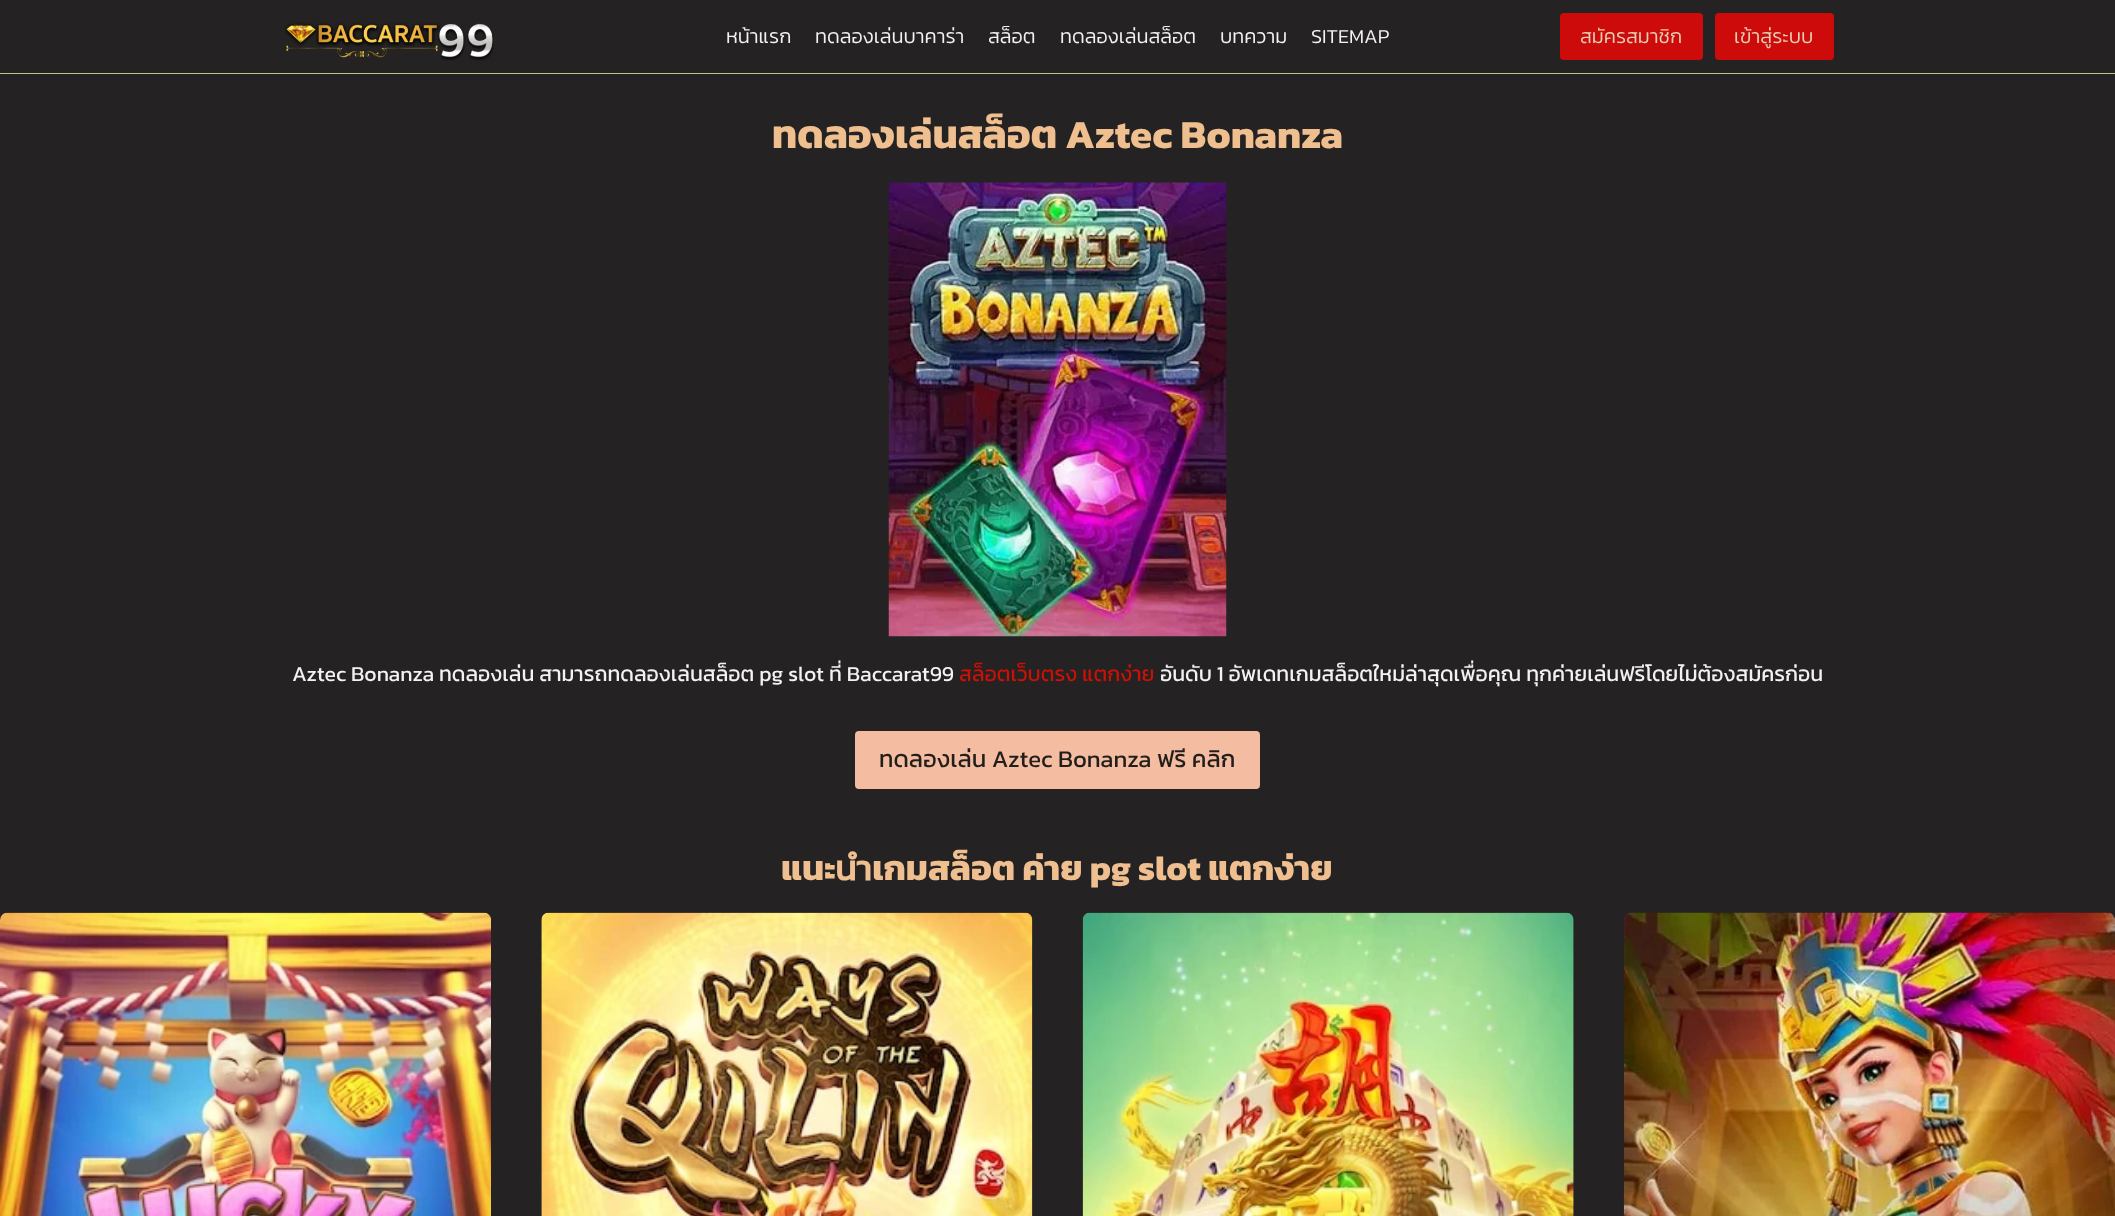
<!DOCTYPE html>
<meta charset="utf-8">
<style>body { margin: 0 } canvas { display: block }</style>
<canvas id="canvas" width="2115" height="1216"></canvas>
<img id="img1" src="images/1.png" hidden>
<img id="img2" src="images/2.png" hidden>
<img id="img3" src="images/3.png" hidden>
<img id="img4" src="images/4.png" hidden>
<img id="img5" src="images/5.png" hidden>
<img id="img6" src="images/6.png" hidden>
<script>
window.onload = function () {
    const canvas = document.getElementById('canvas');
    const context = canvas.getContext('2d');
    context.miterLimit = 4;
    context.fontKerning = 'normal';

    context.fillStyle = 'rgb(36, 34, 34)';
    context.fillRect(0, 0, 2115, 1216);
    context.fillStyle = 'rgb(195, 191, 136)';
    context.fillRect(0, 73, 2115, 1);
    context.drawImage(document.getElementById('img1'), 285, 22, 209, 39);
    context.fillStyle = 'rgb(206, 11, 11)';
    context.beginPath();
    context.roundRect(1560, 13, 143, 47, 4);
    context.fill();
    context.beginPath();
    context.roundRect(1715, 13, 119, 47, 4);
    context.fill();
    context.drawImage(document.getElementById('img2'), 888, 182, 339, 455);
    context.fillStyle = 'rgb(244, 188, 161)';
    context.beginPath();
    context.roundRect(855, 731, 405, 58, 4);
    context.fill();
    context.drawImage(document.getElementById('img3'), 0, 912, 491, 304);
    context.drawImage(document.getElementById('img4'), 541, 912, 492, 304);
    context.drawImage(document.getElementById('img5'), 1082, 912, 492, 304);
    context.drawImage(document.getElementById('img6'), 1623, 912, 492, 304);
    context.font = '300 20px Kanit';
    context.fillStyle = 'rgb(242, 242, 242)';
    context.fillText('หน้าแรก', 726, 43);
    context.fillText('ทดลองเล่นบาคาร่า', 815, 43);
    context.fillText('สล็อต', 988, 43);
    context.fillText('ทดลองเล่นสล็อต', 1060, 43);
    context.fillText('บทความ', 1220, 43);
    context.fillText('SITEMAP', 1311, 43);
    context.fillStyle = 'rgb(230, 207, 180)';
    context.fillText('สมัครสมาชิก', 1580, 43);
    context.fillText('เข้าสู่ระบบ', 1734, 43);
    context.font = 'bold 40px Kanit';
    context.fillStyle = 'rgb(239, 191, 143)';
    context.fillText('ทดลองเล่นสล็อต Aztec Bonanza', 772, 148);
    context.font = '21.25px Kanit';
    context.fillStyle = 'rgb(242, 242, 242)';
    context.fillText('Aztec Bonanza ทดลองเล่น สามารถทดลองเล่นสล็อต pg slot ที่ Baccarat99', 292, 681);
    context.fillStyle = 'rgb(200, 17, 7)';
    context.fillText('สล็อตเว็บตรง แตกง่าย', 959, 681);
    context.fillStyle = 'rgb(242, 242, 242)';
    context.fillText('อันดับ 1 อัพเดทเกมสล็อตใหม่ล่าสุดเพื่อคุณ ทุกค่ายเล่นฟรีโดยไม่ต้องสมัครก่อน', 1160, 681);
    context.font = '23.9px Kanit';
    context.fillStyle = 'rgb(34, 30, 27)';
    context.fillText('ทดลองเล่น Aztec Bonanza ฟรี คลิก', 879, 767);
    context.font = 'bold 35px Kanit';
    context.fillStyle = 'rgb(239, 191, 143)';
    context.fillText('แนะนำเกมสล็อต ค่าย pg slot แตกง่าย', 781, 880);
};
</script>
